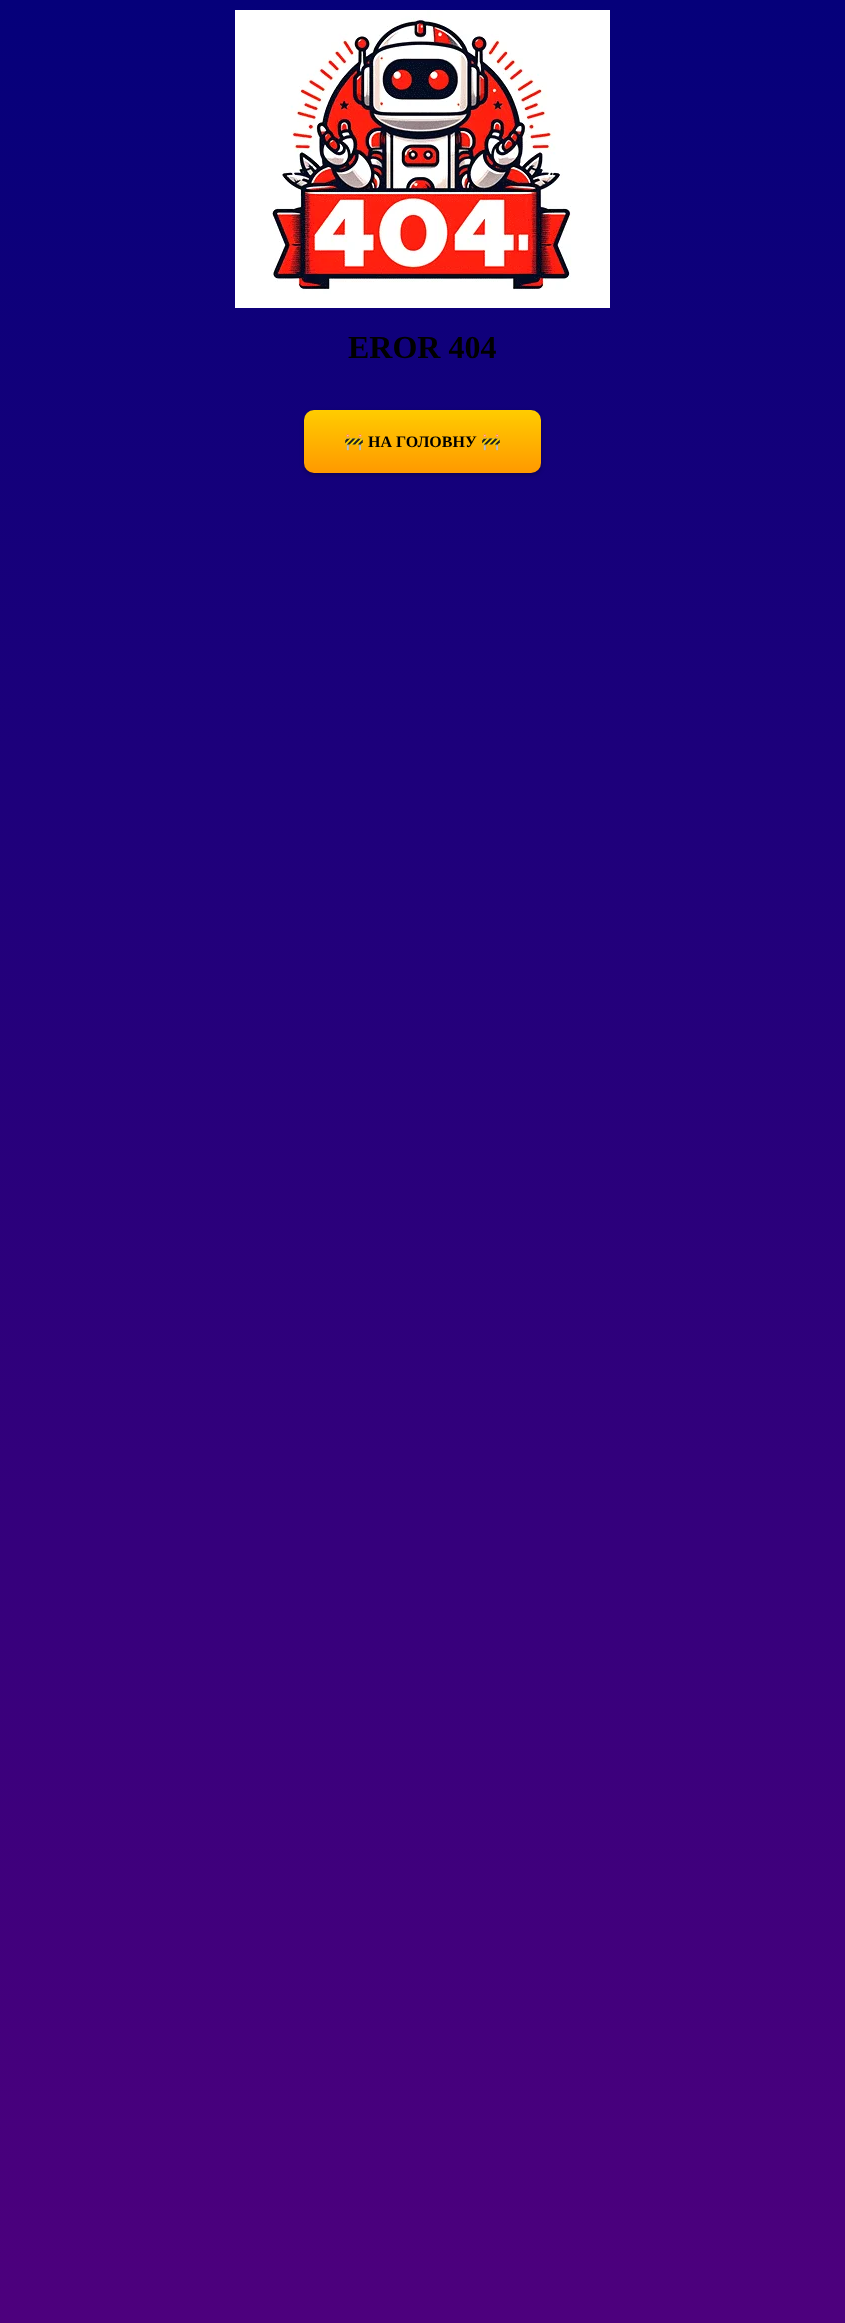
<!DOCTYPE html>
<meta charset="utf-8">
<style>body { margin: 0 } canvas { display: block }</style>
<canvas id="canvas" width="845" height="2323"></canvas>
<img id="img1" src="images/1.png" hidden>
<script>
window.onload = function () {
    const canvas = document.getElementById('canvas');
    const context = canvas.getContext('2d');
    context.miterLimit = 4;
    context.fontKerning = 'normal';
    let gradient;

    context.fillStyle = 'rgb(255, 255, 255)';
    context.fillRect(0, 0, 845, 2323);
    gradient = context.createLinearGradient(422, 0, 423, 2323);
    gradient.addColorStop(0, 'rgb(5, 0, 122)');
    gradient.addColorStop(1, 'rgb(77, 0, 125)');
    context.fillStyle = gradient;
    context.fillRect(0, 0, 845, 2323);
    context.drawImage(document.getElementById('img1'), 235, 10, 375, 298);
    context.fillStyle = 'rgba(0, 0, 0, 0.3)';
    context.filter = 'blur(2px)';
    context.beginPath();
    context.roundRect(304, 412, 237, 63, 10);
    context.fill();
    context.filter = 'none';
    gradient = context.createLinearGradient(423, 410, 423, 473);
    gradient.addColorStop(0, 'rgb(255, 204, 0)');
    gradient.addColorStop(1, 'rgb(255, 153, 0)');
    context.fillStyle = gradient;
    context.beginPath();
    context.roundRect(304, 410, 237, 63, 10);
    context.fill();
    context.font = 'bold 32px Liberation Serif';
    context.fillStyle = 'rgb(0, 0, 0)';
    context.fillText('EROR 404', 348, 358);
    context.font = 'bold 16px Noto Color Emoji';
    context.fillText('🚧', 344, 447);
    context.font = 'bold 16px Liberation Serif';
    context.fillText('НА ГОЛОВНУ', 368, 447);
    context.font = 'bold 16px Noto Color Emoji';
    context.fillText('🚧', 481, 447);
};
</script>
